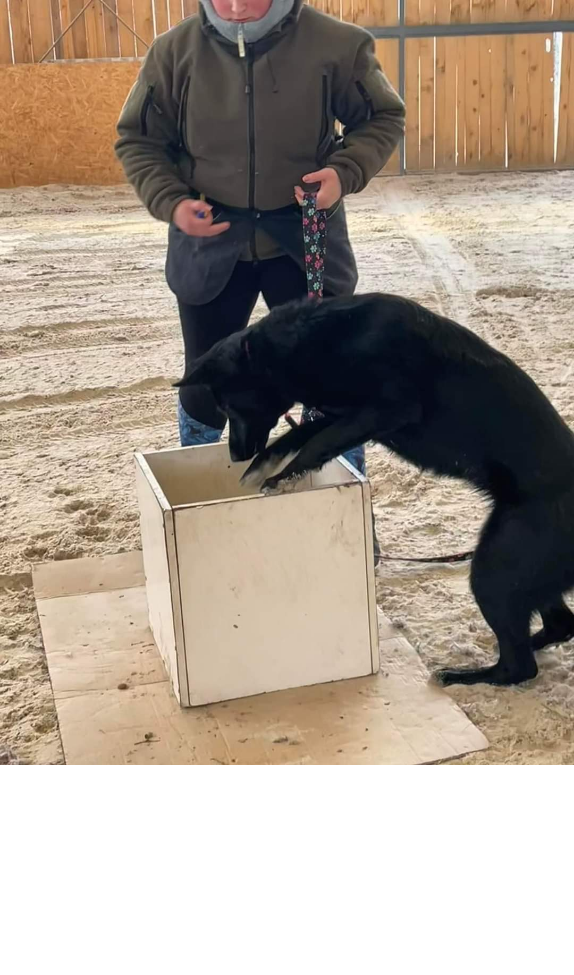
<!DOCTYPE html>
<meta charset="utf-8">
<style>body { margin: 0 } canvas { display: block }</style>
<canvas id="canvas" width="574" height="975"></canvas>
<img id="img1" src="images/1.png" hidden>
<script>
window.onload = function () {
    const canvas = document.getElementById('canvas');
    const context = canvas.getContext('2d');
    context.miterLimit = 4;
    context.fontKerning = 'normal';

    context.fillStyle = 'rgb(255, 255, 255)';
    context.fillRect(0, 0, 574, 975);
    context.drawImage(document.getElementById('img1'), 0, 0, 574, 765);
};
</script>
